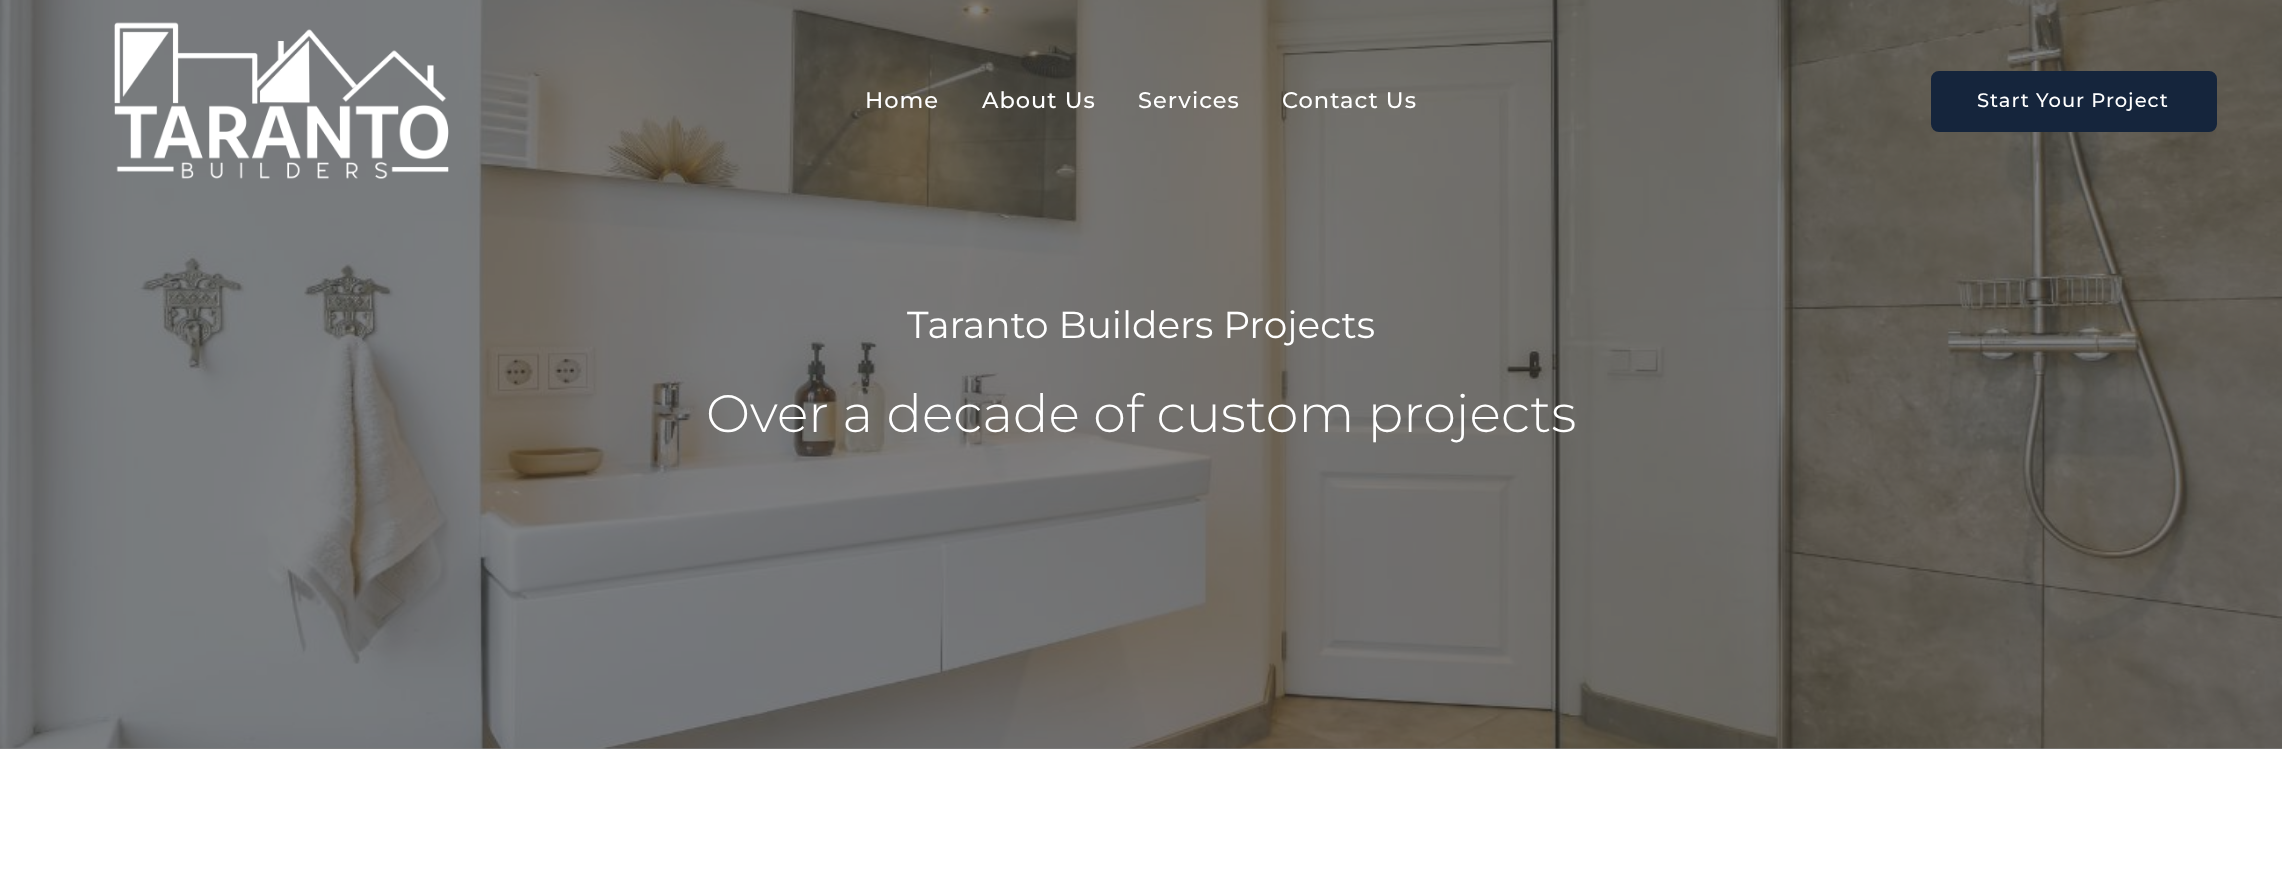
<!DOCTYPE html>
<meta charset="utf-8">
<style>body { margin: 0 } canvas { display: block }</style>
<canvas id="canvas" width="2282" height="880"></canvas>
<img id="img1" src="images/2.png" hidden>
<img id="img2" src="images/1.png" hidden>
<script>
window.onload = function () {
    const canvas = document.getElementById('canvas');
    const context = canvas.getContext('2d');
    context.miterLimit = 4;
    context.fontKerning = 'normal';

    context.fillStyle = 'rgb(255, 255, 255)';
    context.fillRect(0, 0, 2282, 880);
    context.fillStyle = 'rgb(130, 131, 131)';
    context.fillRect(0, 748, 2282, 1);
    context.drawImage(document.getElementById('img1'), 0, 0, 2282, 749);
    context.drawImage(document.getElementById('img2'), 114, 22, 335, 157);
    context.fillStyle = 'rgb(21, 37, 60)';
    context.beginPath();
    context.roundRect(1932, 72, 284, 59, 7);
    context.fill();
    context.strokeStyle = 'rgb(21, 37, 60)';
    context.lineWidth = 2;
    context.stroke();
    context.letterSpacing = '1px';
    context.font = '500 22.5px Montserrat';
    context.fillStyle = 'rgb(255, 255, 255)';
    context.fillText('Home', 865, 108);
    context.fillText('About Us', 982, 108);
    context.fillText('Services', 1138, 108);
    context.fillText('Contact Us', 1282, 108);
    context.font = '500 19.5px Montserrat';
    context.fillText('Start Your Project', 1977, 107);
    context.letterSpacing = '0px';
    context.font = '37.5px Montserrat';
    context.fillText('Taranto Builders Projects', 907, 338);
    context.font = '300 52.5px Montserrat';
    context.fillText('Over a decade of custom projects', 706, 432);
};
</script>
